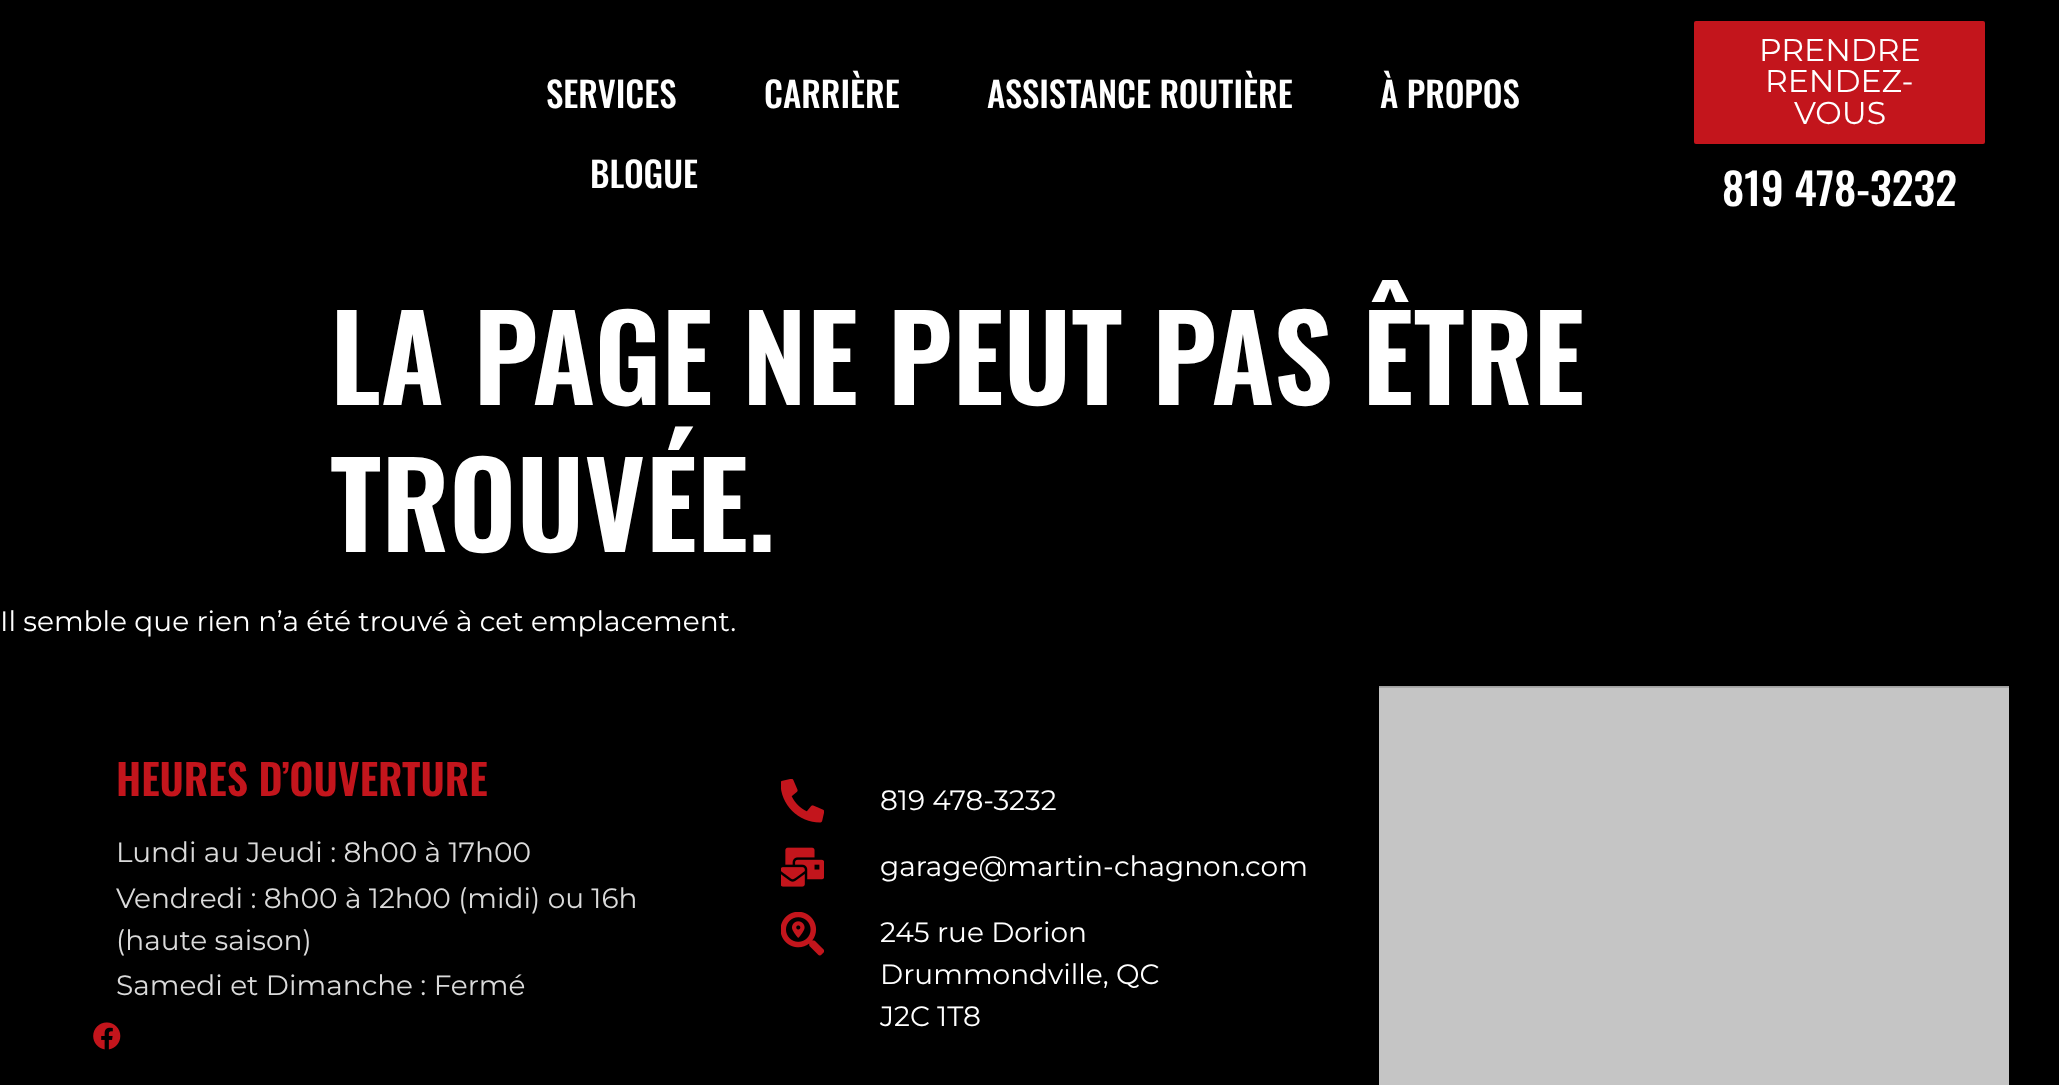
<!DOCTYPE html>
<meta charset="utf-8">
<style>body { margin: 0 } canvas { display: block }</style>
<canvas id="canvas" width="2059" height="1085"></canvas>
<img id="img1" src="images/1.png" hidden>
<img id="img2" src="images/2.png" hidden>
<img id="img3" src="images/3.png" hidden>
<img id="img4" src="images/4.png" hidden>
<img id="img5" src="images/5.png" hidden>
<script>
window.onload = function () {
    const canvas = document.getElementById('canvas');
    const context = canvas.getContext('2d');
    context.miterLimit = 4;
    context.fontKerning = 'normal';

    context.fillStyle = 'rgb(0, 0, 0)';
    context.fillRect(0, 0, 2059, 1085);
    context.save();
    context.beginPath();
    context.rect(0, 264, 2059, 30);
    context.clip();
    context.fillStyle = 'rgba(0, 0, 0, 0.5)';
    context.filter = 'blur(20px)';
    context.beginPath();
    context.rect(-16, 5, 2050, 254);
    context.fill();
    context.filter = 'none';
    context.restore();
    context.fillStyle = 'rgb(195, 21, 28)';
    context.beginPath();
    context.roundRect(1694, 21, 291, 123, 2);
    context.fill();
    context.drawImage(document.getElementById('img1'), 93, 1022, 28, 28);
    context.drawImage(document.getElementById('img2'), 781, 779, 43, 44);
    context.drawImage(document.getElementById('img3'), 781, 847, 43, 40);
    context.drawImage(document.getElementById('img4'), 781, 912, 43, 44);
    context.drawImage(document.getElementById('img5'), 1379, 686, 630, 399);
    context.font = '500 35px Oswald';
    context.fillStyle = 'rgb(255, 255, 255)';
    context.fillText('SERVICES', 546, 108);
    context.fillText('CARRIÈRE', 764, 108);
    context.fillText('ASSISTANCE ROUTIÈRE', 987, 108);
    context.fillText('À PROPOS', 1380, 108);
    context.fillText('BLOGUE', 590, 188);
    context.font = '31.5px Montserrat';
    context.fillText('PRENDRE', 1759, 61);
    context.fillText('RENDEZ-', 1765, 92);
    context.fillText('VOUS', 1794, 124);
    context.font = '500 43.75px Oswald';
    context.fillText('819 478-3232', 1722, 206);
    context.font = '600 117.25px Oswald';
    context.fillText('LA PAGE NE PEUT PAS ÊTRE', 330, 405);
    context.fillText('TROUVÉE.', 330, 552);
    context.font = '28px Montserrat';
    context.fillText('Il semble que rien n’a été trouvé à cet emplacement.', 0, 631);
    context.font = '600 42px Oswald';
    context.fillStyle = 'rgb(195, 21, 28)';
    context.fillText('HEURES D’OUVERTURE', 116, 796);
    context.font = '28px Montserrat';
    context.fillStyle = 'rgb(218, 218, 218)';
    context.fillText('Lundi au Jeudi : 8h00 à 17h00', 116, 862);
    context.fillText('Vendredi : 8h00 à 12h00 (midi) ou 16h', 116, 908);
    context.fillText('(haute saison)', 116, 950);
    context.fillText('Samedi et Dimanche : Fermé', 116, 995);
    context.fillStyle = 'rgb(255, 255, 255)';
    context.fillText('819 478-3232', 880, 810);
    context.fillText('garage@martin-chagnon.com', 880, 876);
    context.fillText('245 rue Dorion', 880, 942);
    context.fillText('Drummondville, QC', 880, 984);
    context.fillText('J2C 1T8', 880, 1026);
};
</script>
